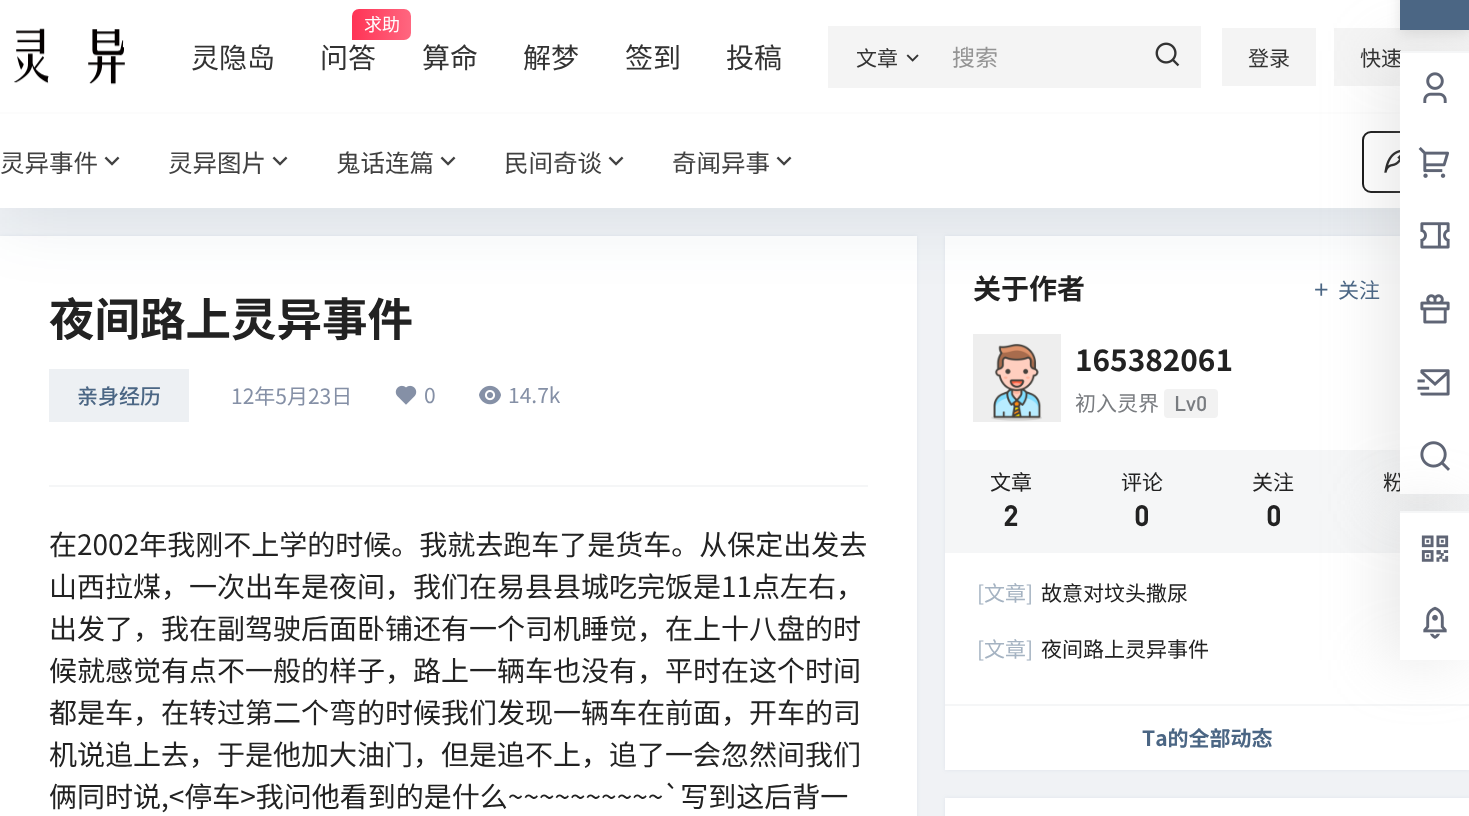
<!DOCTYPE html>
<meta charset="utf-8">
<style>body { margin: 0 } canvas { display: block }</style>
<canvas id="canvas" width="1469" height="816"></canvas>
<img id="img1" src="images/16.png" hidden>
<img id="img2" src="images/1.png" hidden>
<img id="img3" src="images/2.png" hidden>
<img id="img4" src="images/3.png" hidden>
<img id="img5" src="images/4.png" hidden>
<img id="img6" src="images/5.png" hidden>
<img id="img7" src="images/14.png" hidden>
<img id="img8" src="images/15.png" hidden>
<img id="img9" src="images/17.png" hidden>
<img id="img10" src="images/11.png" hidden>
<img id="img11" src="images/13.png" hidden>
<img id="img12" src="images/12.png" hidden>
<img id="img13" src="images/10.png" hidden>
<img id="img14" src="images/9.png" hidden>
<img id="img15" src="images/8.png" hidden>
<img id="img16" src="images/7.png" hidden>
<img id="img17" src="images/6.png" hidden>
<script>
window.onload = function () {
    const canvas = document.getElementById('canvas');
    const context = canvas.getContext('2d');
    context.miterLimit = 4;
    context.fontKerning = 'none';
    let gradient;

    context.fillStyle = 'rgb(240, 242, 245)';
    context.fillRect(0, 0, 1469, 816);
    context.fillStyle = 'rgba(98, 124, 153, 0.1)';
    context.filter = 'blur(2px)';
    context.beginPath();
    context.rect(0, 236, 917, 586);
    context.fill();
    context.filter = 'none';
    context.fillStyle = 'rgb(255, 255, 255)';
    context.fillRect(0, 236, 917, 580);
    context.fillStyle = 'rgba(98, 124, 153, 0.1)';
    context.filter = 'blur(2px)';
    context.beginPath();
    context.rect(945, 236, 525, 534);
    context.fill();
    context.filter = 'none';
    context.fillStyle = 'rgb(255, 255, 255)';
    context.fillRect(945, 236, 524, 534);
    context.drawImage(document.getElementById('img1'), 1315, 283, 13, 13);
    context.fillStyle = 'rgba(17, 58, 93, 0.1)';
    context.filter = 'blur(35px)';
    context.beginPath();
    context.rect(0, 9, 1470, 208);
    context.fill();
    context.filter = 'none';
    context.fillStyle = 'rgb(255, 255, 255)';
    context.fillRect(0, 0, 1400, 112);
    context.drawImage(document.getElementById('img2'), 14, 28, 111, 57);
    gradient = context.createLinearGradient(352, 24, 411, 24);
    gradient.addColorStop(0, 'rgb(255, 51, 85)');
    gradient.addColorStop(1, 'rgb(255, 103, 128)');
    context.fillStyle = gradient;
    context.beginPath();
    context.roundRect(352, 9, 59, 31, [7, 7, 7, 0]);
    context.fill();
    context.fillStyle = 'rgb(244, 244, 244)';
    context.fillRect(828, 26, 373, 62);
    context.drawImage(document.getElementById('img3'), 906, 54, 13, 8);
    context.drawImage(document.getElementById('img4'), 1155, 42, 25, 25);
    context.fillRect(1222, 28, 94, 58);
    context.fillRect(1334, 28, 135, 58);
    context.fillStyle = 'rgb(255, 255, 255)';
    context.fillRect(0, 114, 1400, 94);
    context.fillStyle = 'rgb(252, 252, 252)';
    context.fillRect(0, 112, 1400, 2);
    context.drawImage(document.getElementById('img5'), 104, 156, 16, 10);
    context.drawImage(document.getElementById('img5'), 272, 156, 16, 10);
    context.drawImage(document.getElementById('img5'), 440, 156, 16, 10);
    context.drawImage(document.getElementById('img5'), 608, 156, 16, 10);
    context.drawImage(document.getElementById('img5'), 776, 156, 16, 10);
    context.beginPath();
    context.roundRect(1363, 132, 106, 60, 8);
    context.strokeStyle = 'rgb(18, 18, 18)';
    context.lineWidth = 2;
    context.stroke();
    context.drawImage(document.getElementById('img6'), 1384, 150, 16, 23);
    context.fillStyle = 'rgb(245, 246, 247)';
    context.fillRect(945, 450, 524, 103);
    context.fillStyle = 'rgba(181, 181, 181, 0.32)';
    context.filter = 'blur(30.5px)';
    context.beginPath();
    context.rect(1386, 51, 70, 443);
    context.fill();
    context.filter = 'none';
    context.fillStyle = 'rgb(245, 246, 247)';
    context.fillRect(49, 485, 819, 2);
    context.fillStyle = 'rgb(237, 240, 243)';
    context.fillRect(49, 369, 140, 53);
    context.drawImage(document.getElementById('img7'), 395, 385, 22, 20);
    context.drawImage(document.getElementById('img8'), 479, 385, 22, 20);
    context.fillStyle = 'rgb(238, 238, 238)';
    context.fillRect(973, 334, 88, 88);
    context.drawImage(document.getElementById('img9'), 991, 343, 51, 78);
    context.fillStyle = 'rgb(242, 242, 242)';
    context.beginPath();
    context.roundRect(1164, 389, 54, 29, 4);
    context.fill();
    context.fillStyle = 'rgb(245, 246, 247)';
    context.fillRect(945, 704, 524, 2);
    context.fillStyle = 'rgba(98, 124, 153, 0.1)';
    context.filter = 'blur(2px)';
    context.beginPath();
    context.rect(945, 798, 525, 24);
    context.fill();
    context.filter = 'none';
    context.fillStyle = 'rgb(255, 255, 255)';
    context.fillRect(945, 798, 524, 18);
    context.font = '28px Noto Sans CJK SC';
    context.fillStyle = 'rgb(51, 51, 51)';
    context.fillText('灵隐岛', 191, 68);
    context.font = '18px Noto Sans CJK SC';
    context.fillStyle = 'rgb(255, 255, 255)';
    context.fillText('求助', 364, 31);
    context.font = '28px Noto Sans CJK SC';
    context.fillStyle = 'rgb(51, 51, 51)';
    context.fillText('问答', 320, 68);
    context.fillText('算命', 422, 68);
    context.fillText('解梦', 523, 68);
    context.fillText('签到', 625, 68);
    context.fillText('投稿', 726, 68);
    context.font = '21px Noto Sans CJK SC';
    context.fillText('文章', 856, 66);
    context.font = '23px Noto Sans CJK SC';
    context.fillStyle = 'rgb(148, 148, 148)';
    context.fillText('搜索', 952, 66);
    context.font = '21px Noto Sans CJK SC';
    context.fillStyle = 'rgb(51, 51, 51)';
    context.fillText('登录', 1248, 66);
    context.fillText('快速', 1360, 66);
    context.font = '24.5px Noto Sans CJK SC';
    context.fillStyle = 'rgb(65, 65, 65)';
    context.fillText('灵异事件', 0, 172);
    context.fillText('灵异图片', 168, 172);
    context.fillText('鬼话连篇', 336, 172);
    context.fillText('民间奇谈', 504, 172);
    context.fillText('奇闻异事', 672, 172);
    context.fillStyle = 'rgb(245, 246, 247)';
    context.fillRect(1400, 51, 69, 2);
    context.font = 'bold 45.5px Noto Sans CJK SC';
    context.fillStyle = 'rgb(34, 34, 34)';
    context.fillText('夜间路上灵异事件', 49, 336);
    context.font = '500 21px Noto Sans CJK SC';
    context.fillStyle = 'rgb(75, 102, 132)';
    context.fillText('亲身经历', 77, 404);
    context.font = '21px Noto Sans CJK SC';
    context.fillStyle = 'rgb(133, 144, 166)';
    context.fillText('12年5月23日', 231, 404);
    context.fillText('0', 424, 403);
    context.fillText('14.7k', 508, 403);
    context.font = '28px Noto Sans CJK SC';
    context.fillStyle = 'rgb(34, 34, 34)';
    context.fillText('在2002年我刚不上学的时候。我就去跑车了是货车。从保定出发去', 49, 555);
    context.fillText('山西拉煤，一次出车是夜间，我们在易县县城吃完饭是11点左右，', 49, 597);
    context.fillText('出发了，我在副驾驶后面卧铺还有一个司机睡觉，在上十八盘的时', 49, 639);
    context.fillText('候就感觉有点不一般的样子，路上一辆车也没有，平时在这个时间', 49, 681);
    context.fillText('都是车，在转过第二个弯的时候我们发现一辆车在前面，开车的司', 49, 723);
    context.fillText('机说追上去，于是他加大油门，但是追不上，追了一会忽然间我们', 49, 765);
    context.fillText('俩同时说,<停车>我问他看到的是什么~~~~~~~~~~`写到这后背一', 49, 807);
    context.font = 'bold 28px Noto Sans CJK SC';
    context.fillText('关于作者', 973, 299);
    context.font = '21px Noto Sans CJK SC';
    context.fillStyle = 'rgb(75, 102, 132)';
    context.fillText('关注', 1338, 298);
    context.font = 'bold 29.75px Noto Sans CJK SC';
    context.fillStyle = 'rgb(34, 34, 34)';
    context.fillText('165382061', 1075, 371);
    context.font = '21px Noto Sans CJK SC';
    context.fillStyle = 'rgb(121, 124, 128)';
    context.fillText('初入灵界', 1075, 411);
    context.font = '500 21px DIN';
    context.fillText('Lv0', 1174, 411);
    context.font = '21px Noto Sans CJK SC';
    context.fillStyle = 'rgb(34, 34, 34)';
    context.fillText('文章', 990, 490);
    context.font = 'bold 28px DIN';
    context.fillText('2', 1003, 526);
    context.font = '21px Noto Sans CJK SC';
    context.fillText('评论', 1121, 490);
    context.font = 'bold 28px DIN';
    context.fillText('0', 1134, 526);
    context.font = '21px Noto Sans CJK SC';
    context.fillText('关注', 1252, 490);
    context.font = 'bold 28px DIN';
    context.fillText('0', 1266, 526);
    context.font = '21px Noto Sans CJK SC';
    context.fillText('粉', 1383, 490);
    context.fillStyle = 'rgb(255, 255, 255)';
    context.fillRect(1400, 53, 69, 441);
    context.drawImage(document.getElementById('img10'), 1420, 441, 30, 30);
    context.fillStyle = 'rgba(181, 181, 181, 0.32)';
    context.filter = 'blur(30.5px)';
    context.beginPath();
    context.rect(1386, 511, 70, 149);
    context.fill();
    context.filter = 'none';
    context.fillStyle = 'rgb(255, 255, 255)';
    context.fillRect(1400, 513, 69, 147);
    context.drawImage(document.getElementById('img11'), 1423, 606, 24, 33);
    context.drawImage(document.getElementById('img12'), 1421, 535, 28, 27);
    context.fillStyle = 'rgb(245, 246, 247)';
    context.fillRect(1400, 511, 69, 2);
    context.drawImage(document.getElementById('img13'), 1417, 369, 33, 27);
    context.drawImage(document.getElementById('img14'), 1420, 294, 30, 30);
    context.drawImage(document.getElementById('img15'), 1420, 222, 30, 27);
    context.drawImage(document.getElementById('img16'), 1418, 147, 31, 31);
    context.drawImage(document.getElementById('img17'), 1423, 72, 24, 31);
    context.fillStyle = 'rgba(0, 0, 0, 0.1)';
    context.filter = 'blur(7px)';
    context.beginPath();
    context.rect(1400, -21, 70, 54);
    context.fill();
    context.filter = 'none';
    context.fillStyle = 'rgb(75, 102, 132)';
    context.fillRect(1400, 0, 69, 30);
    context.fillStyle = 'rgb(165, 179, 194)';
    context.fillText('[文章]', 977, 601);
    context.fillStyle = 'rgb(34, 34, 34)';
    context.fillText('故意对坟头撒尿', 1041, 601);
    context.fillStyle = 'rgb(165, 179, 194)';
    context.fillText('[文章]', 977, 657);
    context.fillStyle = 'rgb(34, 34, 34)';
    context.fillText('夜间路上灵异事件', 1041, 657);
    context.font = 'bold 21px Noto Sans CJK SC';
    context.fillStyle = 'rgb(75, 102, 132)';
    context.fillText('Ta的全部动态', 1142, 746);
};
</script>
